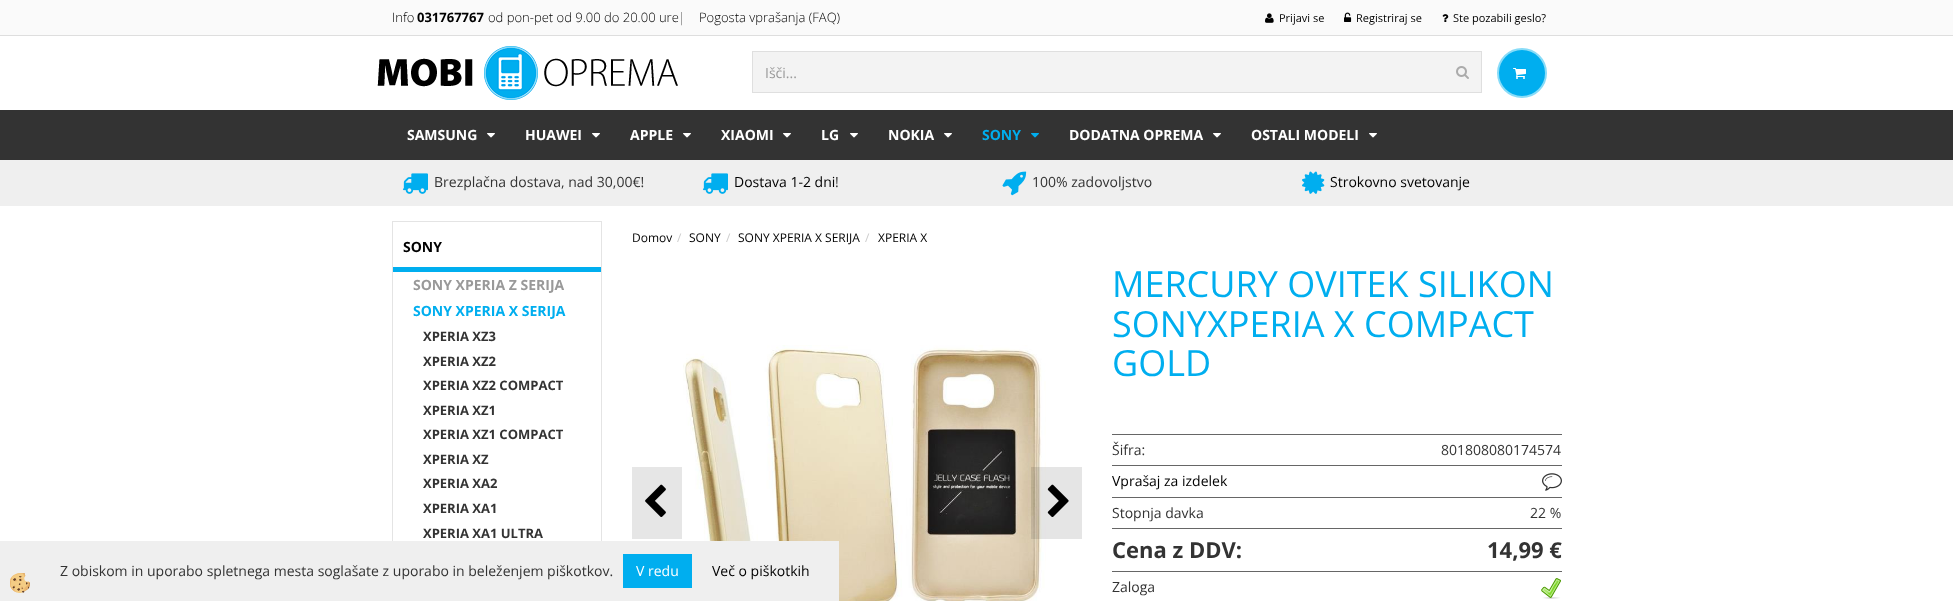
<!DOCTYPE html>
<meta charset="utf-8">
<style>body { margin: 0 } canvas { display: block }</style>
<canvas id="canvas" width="1953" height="601"></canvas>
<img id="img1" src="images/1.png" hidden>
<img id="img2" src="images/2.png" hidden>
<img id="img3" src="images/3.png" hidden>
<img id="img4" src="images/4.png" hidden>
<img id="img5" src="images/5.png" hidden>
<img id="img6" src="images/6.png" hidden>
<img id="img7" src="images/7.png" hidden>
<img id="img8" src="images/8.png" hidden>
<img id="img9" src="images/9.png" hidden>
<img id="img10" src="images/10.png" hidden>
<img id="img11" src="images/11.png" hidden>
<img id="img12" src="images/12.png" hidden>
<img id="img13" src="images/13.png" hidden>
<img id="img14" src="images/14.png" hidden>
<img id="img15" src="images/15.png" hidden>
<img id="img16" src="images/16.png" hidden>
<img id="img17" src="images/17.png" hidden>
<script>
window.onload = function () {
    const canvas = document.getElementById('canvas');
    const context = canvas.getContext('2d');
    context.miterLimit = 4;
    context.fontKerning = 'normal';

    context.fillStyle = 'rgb(255, 255, 255)';
    context.fillRect(0, 0, 1953, 601);
    context.fillStyle = 'rgb(250, 250, 250)';
    context.fillRect(0, 0, 1953, 35);
    context.fillStyle = 'rgb(222, 222, 222)';
    context.fillRect(0, 35, 1953, 1);
    context.drawImage(document.getElementById('img1'), 1265, 13, 9, 10);
    context.drawImage(document.getElementById('img2'), 1344, 12, 8, 10);
    context.drawImage(document.getElementById('img3'), 1442, 14, 7, 8);
    context.fillStyle = 'rgb(0, 174, 239)';
    context.beginPath();
    context.arc(1522, 73, 24, 0, 2 * Math.PI);
    context.fill();
    context.strokeStyle = 'rgb(136, 220, 248)';
    context.lineWidth = 2;
    context.stroke();
    context.drawImage(document.getElementById('img4'), 1513, 68, 13, 11);
    context.drawImage(document.getElementById('img5'), 377, 46, 301, 54);
    context.fillStyle = 'rgb(243, 243, 243)';
    context.fillRect(753, 52, 728, 40);
    context.fillStyle = 'rgb(223, 223, 223)';
    context.fillRect(752, 51, 730, 1);
    context.fillRect(1481, 51, 1, 42);
    context.fillRect(752, 92, 730, 1);
    context.drawImage(document.getElementById('img6'), 1456, 66, 13, 13);
    context.fillRect(752, 51, 1, 42);
    context.fillStyle = 'rgb(51, 51, 51)';
    context.fillRect(0, 110, 1953, 50);
    context.drawImage(document.getElementById('img7'), 487, 133, 8, 5);
    context.drawImage(document.getElementById('img7'), 592, 133, 8, 5);
    context.drawImage(document.getElementById('img7'), 683, 133, 8, 5);
    context.drawImage(document.getElementById('img7'), 783, 133, 8, 5);
    context.drawImage(document.getElementById('img7'), 850, 133, 8, 5);
    context.drawImage(document.getElementById('img7'), 944, 133, 8, 5);
    context.drawImage(document.getElementById('img8'), 1031, 133, 8, 5);
    context.drawImage(document.getElementById('img7'), 1213, 133, 8, 5);
    context.drawImage(document.getElementById('img7'), 1369, 133, 8, 5);
    context.fillStyle = 'rgb(239, 239, 239)';
    context.fillRect(0, 160, 1953, 46);
    context.drawImage(document.getElementById('img9'), 402, 173, 26, 21);
    context.drawImage(document.getElementById('img9'), 702, 173, 26, 21);
    context.drawImage(document.getElementById('img10'), 1002, 171, 25, 25);
    context.drawImage(document.getElementById('img11'), 1302, 171, 23, 23);
    context.strokeStyle = 'rgb(228, 228, 228)';
    context.lineWidth = 1;
    context.strokeRect(392.5, 221.5, 209, 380);
    context.fillStyle = 'rgb(0, 174, 239)';
    context.fillRect(393, 267, 208, 5);
    context.fillStyle = 'rgb(230, 230, 230)';
    context.fillRect(632, 467, 50, 72);
    context.drawImage(document.getElementById('img12'), 645, 484, 21, 33);
    context.drawImage(document.getElementById('img13'), 683, 345, 363, 256);
    context.fillStyle = 'rgba(0, 0, 0, 0.1)';
    context.fillRect(1031, 467, 51, 72);
    context.drawImage(document.getElementById('img14'), 1047, 484, 22, 33);
    context.fillStyle = 'rgb(102, 102, 102)';
    context.fillRect(1112, 434, 450, 1);
    context.fillRect(1112, 465, 450, 1);
    context.fillRect(1112, 497, 450, 1);
    context.drawImage(document.getElementById('img15'), 1542, 473, 20, 18);
    context.fillRect(1112, 528, 450, 1);
    context.fillRect(1112, 571, 450, 1);
    context.drawImage(document.getElementById('img16'), 1541, 578, 20, 21);
    context.fillStyle = 'rgb(239, 239, 239)';
    context.fillRect(0, 541, 839, 60);
    context.drawImage(document.getElementById('img17'), 10, 573, 20, 20);
    context.fillStyle = 'rgb(0, 174, 239)';
    context.fillRect(623, 554, 69, 34);
    context.font = '300 13px Open Sans';
    context.fillStyle = 'rgb(0, 0, 0)';
    context.fillText('Info', 392, 22);
    context.font = 'bold 13px Open Sans';
    context.fillText('031767767', 417, 22);
    context.font = '300 13px Open Sans';
    context.fillText('od pon-pet od 9.00 do 20.00 ure', 488, 22);
    context.fillStyle = 'rgb(102, 102, 102)';
    context.fillText('|', 678, 22);
    context.fillStyle = 'rgb(0, 0, 0)';
    context.fillText('Pogosta vprašanja (FAQ)', 699, 22);
    context.font = '11px Open Sans';
    context.fillText('Prijavi se', 1279, 22);
    context.fillText('Registriraj se', 1356, 22);
    context.fillText('Ste pozabili geslo?', 1453, 22);
    context.font = '14px Open Sans';
    context.fillStyle = 'rgb(153, 153, 153)';
    context.fillText('Išči...', 765, 78);
    context.font = 'bold 14px Open Sans';
    context.fillStyle = 'rgb(255, 255, 255)';
    context.fillText('SAMSUNG', 407, 140);
    context.fillText('HUAWEI', 525, 140);
    context.fillText('APPLE', 630, 140);
    context.fillText('XIAOMI', 721, 140);
    context.fillText('LG', 821, 140);
    context.fillText('NOKIA', 888, 140);
    context.fillStyle = 'rgb(0, 174, 239)';
    context.fillText('SONY', 982, 140);
    context.fillStyle = 'rgb(255, 255, 255)';
    context.fillText('DODATNA OPREMA', 1069, 140);
    context.fillText('OSTALI MODELI', 1251, 140);
    context.font = '14px Open Sans';
    context.fillStyle = 'rgb(51, 51, 51)';
    context.fillText('Brezplačna dostava, nad 30,00€!', 434, 187);
    context.fillStyle = 'rgb(0, 0, 0)';
    context.fillText('Dostava 1-2 dni', 734, 187);
    context.fillStyle = 'rgb(51, 51, 51)';
    context.fillText('!', 835, 187);
    context.fillText('100% zadovoljstvo', 1032, 187);
    context.fillStyle = 'rgb(0, 0, 0)';
    context.fillText('Strokovno svetovanje', 1330, 187);
    context.font = 'bold 14px Open Sans';
    context.fillText('SONY', 403, 252);
    context.fillStyle = 'rgb(153, 153, 153)';
    context.fillText('SONY XPERIA Z SERIJA', 413, 290);
    context.fillStyle = 'rgb(0, 174, 239)';
    context.fillText('SONY XPERIA X SERIJA', 413, 316);
    context.font = 'bold 13px Open Sans';
    context.fillStyle = 'rgb(51, 51, 51)';
    context.fillText('XPERIA XZ3', 423, 341);
    context.fillText('XPERIA XZ2', 423, 366);
    context.fillText('XPERIA XZ2 COMPACT', 423, 390);
    context.fillText('XPERIA XZ1', 423, 415);
    context.fillText('XPERIA XZ1 COMPACT', 423, 439);
    context.fillText('XPERIA XZ', 423, 464);
    context.fillText('XPERIA XA2', 423, 488);
    context.fillText('XPERIA XA1', 423, 513);
    context.fillText('XPERIA XA1 ULTRA', 423, 538);
    context.font = '12px Open Sans';
    context.fillStyle = 'rgb(0, 0, 0)';
    context.fillText('Domov', 632, 242);
    context.fillStyle = 'rgb(204, 204, 204)';
    context.fillText('/', 677, 242);
    context.fillStyle = 'rgb(0, 0, 0)';
    context.fillText('SONY', 689, 242);
    context.fillStyle = 'rgb(204, 204, 204)';
    context.fillText('/', 726, 242);
    context.fillStyle = 'rgb(0, 0, 0)';
    context.fillText('SONY XPERIA X SERIJA', 738, 242);
    context.fillStyle = 'rgb(204, 204, 204)';
    context.fillText('/', 865, 242);
    context.fillStyle = 'rgb(0, 0, 0)';
    context.fillText('XPERIA X', 878, 242);
    context.font = '36px Open Sans';
    context.fillStyle = 'rgb(0, 174, 239)';
    context.fillText('MERCURY OVITEK SILIKON', 1112, 297);
    context.fillText('SONYXPERIA X COMPACT', 1112, 337);
    context.fillText('GOLD', 1112, 376);
    context.font = '14px Open Sans';
    context.fillStyle = 'rgb(51, 51, 51)';
    context.fillText('Šifra:', 1112, 455);
    context.fillText('801808080174574', 1441, 455);
    context.fillStyle = 'rgb(0, 0, 0)';
    context.fillText('Vprašaj za izdelek', 1112, 486);
    context.fillStyle = 'rgb(51, 51, 51)';
    context.fillText('Stopnja davka', 1112, 518);
    context.fillText('22 %', 1530, 518);
    context.font = 'bold 22px Open Sans';
    context.fillText('Cena z DDV:', 1112, 558);
    context.fillText('14,99 €', 1487, 558);
    context.font = '14px Open Sans';
    context.fillText('Zaloga', 1112, 592);
    context.fillText('Z obiskom in uporabo spletnega mesta soglašate z uporabo in beleženjem piškotkov.', 60, 576);
    context.fillStyle = 'rgb(255, 255, 255)';
    context.fillText('V redu', 636, 576);
    context.fillStyle = 'rgb(0, 0, 0)';
    context.fillText('Več o piškotkih', 712, 576);
};
</script>
